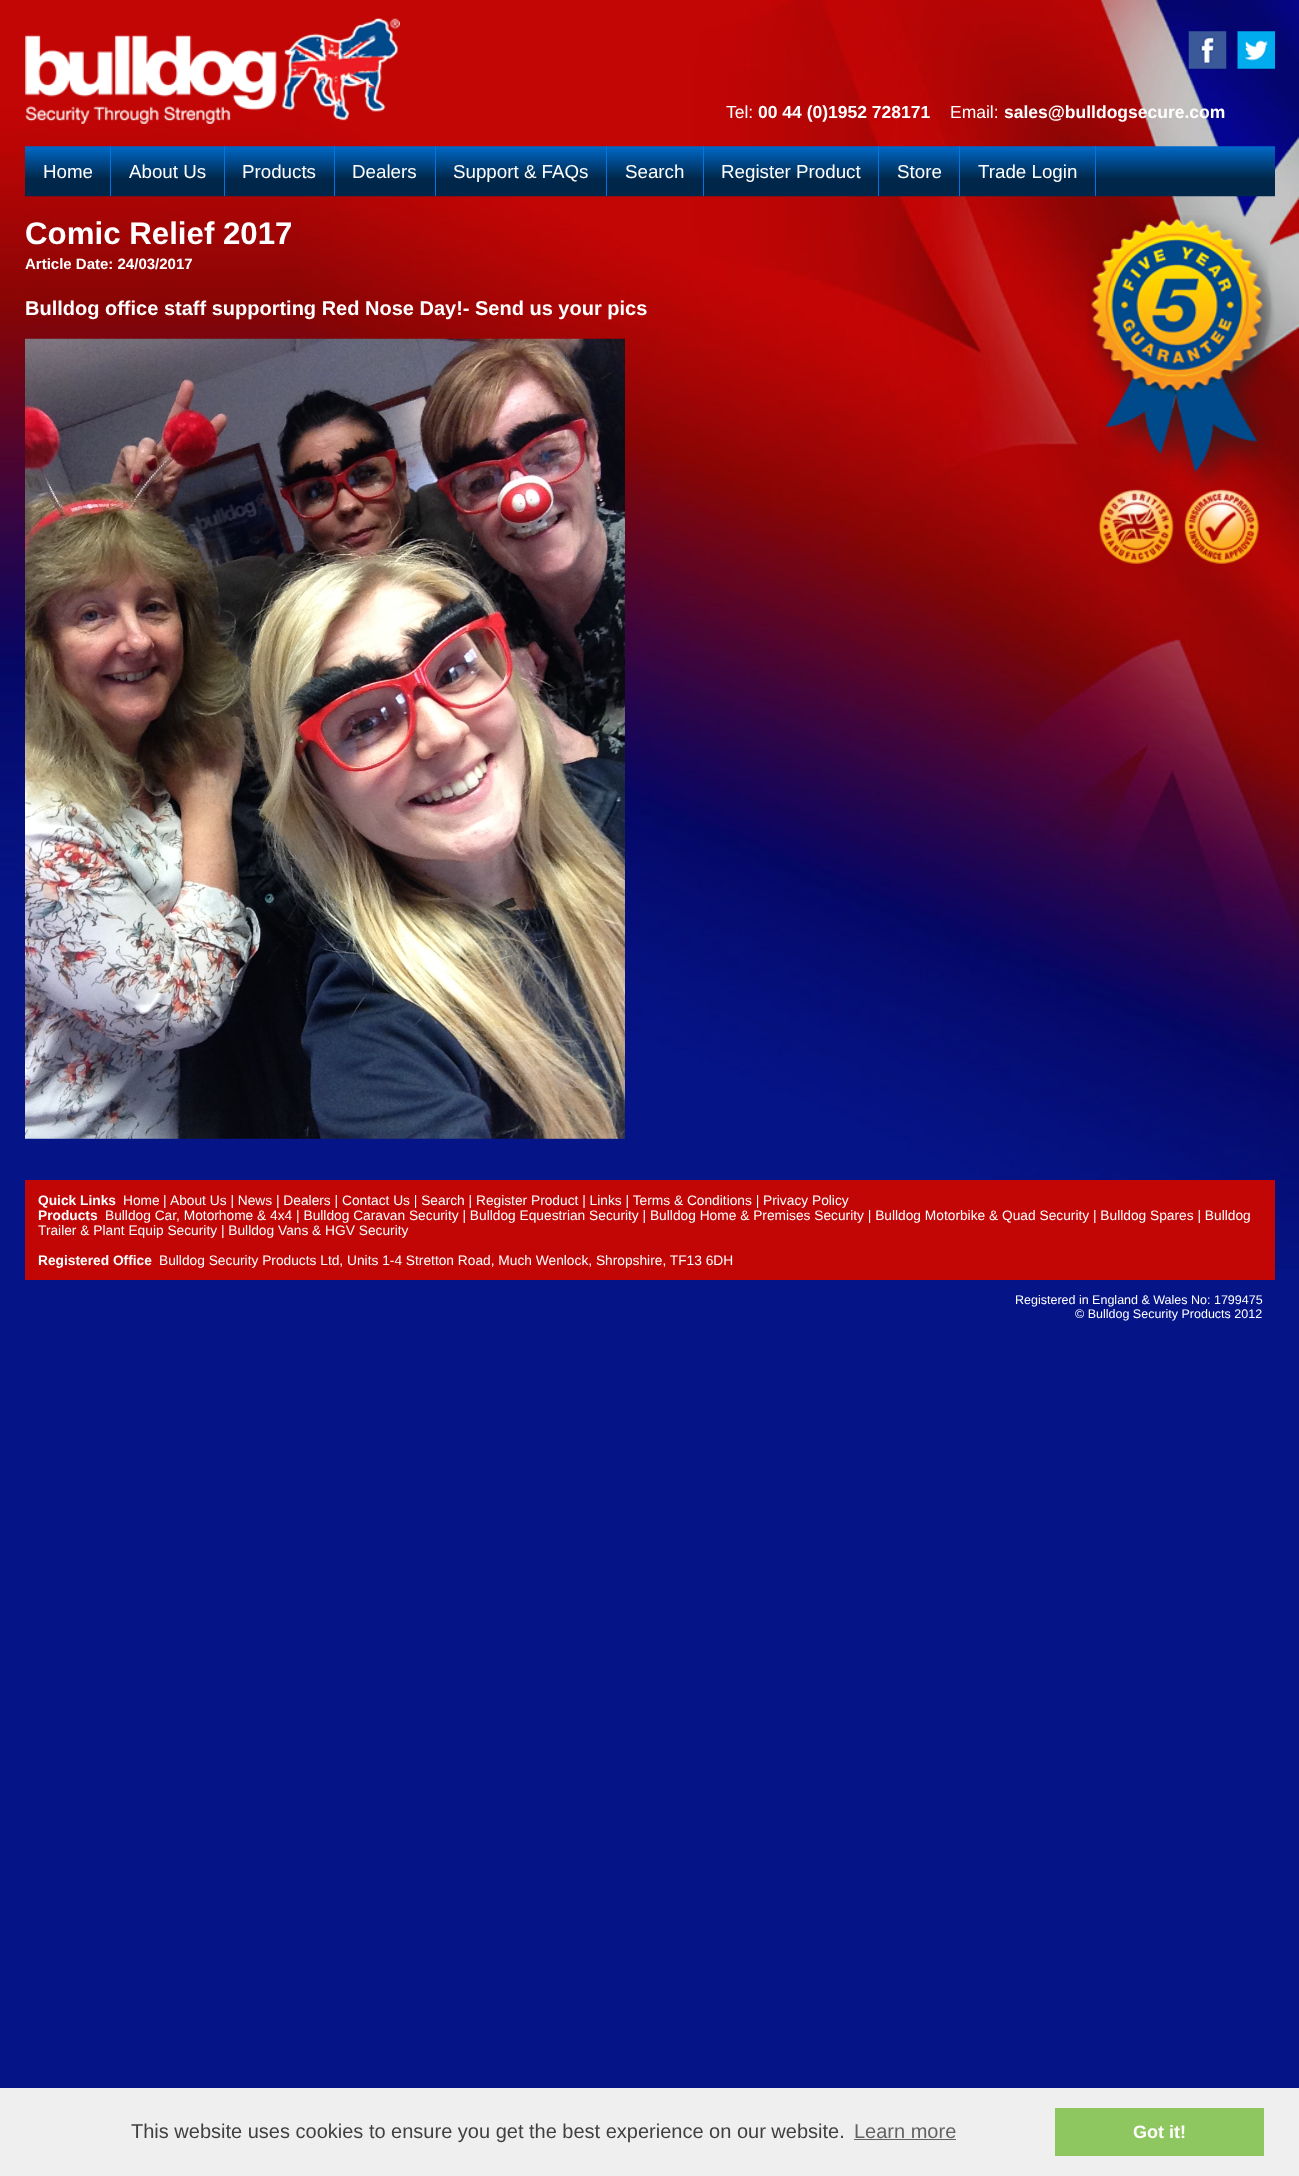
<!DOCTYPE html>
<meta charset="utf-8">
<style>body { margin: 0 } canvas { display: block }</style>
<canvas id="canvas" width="1299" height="2176"></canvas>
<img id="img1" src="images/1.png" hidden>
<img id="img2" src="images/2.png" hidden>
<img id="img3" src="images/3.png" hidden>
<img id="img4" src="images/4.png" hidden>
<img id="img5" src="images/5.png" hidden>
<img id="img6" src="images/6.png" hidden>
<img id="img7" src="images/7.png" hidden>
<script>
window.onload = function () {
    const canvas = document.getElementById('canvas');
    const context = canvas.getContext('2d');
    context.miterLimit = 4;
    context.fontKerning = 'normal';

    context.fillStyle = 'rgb(5, 20, 135)';
    context.fillRect(0, 0, 1299, 2176);
    context.drawImage(document.getElementById('img1'), 0, 0, 1299, 1270);
    context.drawImage(document.getElementById('img2'), 25, 18, 375, 106);
    context.drawImage(document.getElementById('img3'), 1188, 31, 39, 38);
    context.drawImage(document.getElementById('img4'), 1237, 31, 38, 38);
    context.drawImage(document.getElementById('img5'), 25, 146, 1250, 51);
    context.fillStyle = 'rgb(0, 117, 223)';
    context.fillRect(110, 146, 1, 50);
    context.fillRect(224, 146, 1, 50);
    context.fillRect(334, 146, 1, 50);
    context.fillRect(435, 146, 1, 50);
    context.fillRect(606, 146, 1, 50);
    context.fillRect(703, 146, 1, 50);
    context.fillRect(878, 146, 1, 50);
    context.fillRect(959, 146, 1, 50);
    context.fillRect(1095, 146, 1, 50);
    context.drawImage(document.getElementById('img6'), 1087, 215, 188, 349);
    context.drawImage(document.getElementById('img7'), 25, 338, 600, 801);
    context.fillStyle = 'rgb(194, 5, 5)';
    context.fillRect(25, 1180, 1250, 100);
    context.fillStyle = 'rgb(239, 239, 239)';
    context.fillRect(0, 2088, 1299, 88);
    context.fillStyle = 'rgb(99, 99, 99)';
    context.fillRect(854, 2139, 102, 1);
    context.fillStyle = 'rgb(142, 199, 96)';
    context.fillRect(1055, 2108, 209, 48);
    context.font = '17.5px Liberation Sans';
    context.fillStyle = 'rgb(255, 255, 255)';
    context.fillText('Tel:', 726, 118);
    context.font = 'bold 17.5px Liberation Sans';
    context.fillText('00 44 (0)1952 728171', 758, 118);
    context.font = '17.5px Liberation Sans';
    context.fillText('Email:', 950, 118);
    context.font = 'bold 17.5px Liberation Sans';
    context.fillText('sales@bulldogsecure.com', 1004, 118);
    context.font = '18.75px Liberation Sans';
    context.fillText('Home', 43, 178);
    context.fillText('About Us', 129, 178);
    context.fillText('Products', 242, 178);
    context.fillText('Dealers', 352, 178);
    context.fillText('Support & FAQs', 453, 178);
    context.fillText('Search', 625, 178);
    context.fillText('Register Product', 721, 178);
    context.fillText('Store', 897, 178);
    context.fillText('Trade Login', 978, 178);
    context.font = 'bold 31.25px Liberation Sans';
    context.fillText('Comic Relief 2017', 25, 244);
    context.font = 'bold 15px Liberation Sans';
    context.fillText('Article Date: 24/03/2017', 25, 269);
    context.font = 'bold 20px Liberation Sans';
    context.fillText('Bulldog office staff supporting Red Nose Day!- Send us your pics', 25, 315);
    context.font = 'bold 13.75px Liberation Sans';
    context.fillText('Quick Links', 38, 1205);
    context.font = '13.75px Liberation Sans';
    context.fillText('Home', 123, 1205);
    context.fillText('|', 163, 1205);
    context.fillText('About Us | News | Dealers | Contact Us | Search | Register Product | Links | Terms & Conditions | Privacy Policy', 170, 1205);
    context.font = 'bold 13.75px Liberation Sans';
    context.fillText('Products', 38, 1220);
    context.font = '13.75px Liberation Sans';
    context.fillText('Bulldog Car, Motorhome & 4x4 | Bulldog Caravan Security | Bulldog Equestrian Security | Bulldog Home & Premises Security | Bulldog Motorbike & Quad Security | Bulldog Spares | Bulldog', 105, 1220);
    context.fillText('Trailer & Plant Equip Security | Bulldog Vans & HGV Security', 38, 1235);
    context.font = 'bold 13.75px Liberation Sans';
    context.fillText('Registered Office', 38, 1265);
    context.font = '13.75px Liberation Sans';
    context.fillText('Bulldog Security Products Ltd, Units 1-4 Stretton Road, Much Wenlock, Shropshire, TF13 6DH', 159, 1265);
    context.font = '12.5px Liberation Sans';
    context.fillText('Registered in England & Wales No: 1799475', 1015, 1304);
    context.fillText('© Bulldog Security Products 2012', 1075, 1318);
    context.font = '20px Liberation Sans';
    context.fillStyle = 'rgb(64, 64, 64)';
    context.fillText('This website uses cookies to ensure you get the best experience on our website.', 131, 2138);
    context.fillStyle = 'rgb(99, 99, 99)';
    context.fillText('Learn more', 854, 2138);
    context.font = 'bold 18px Liberation Sans';
    context.fillStyle = 'rgb(255, 255, 255)';
    context.fillText('Got it!', 1133, 2138);
};
</script>
